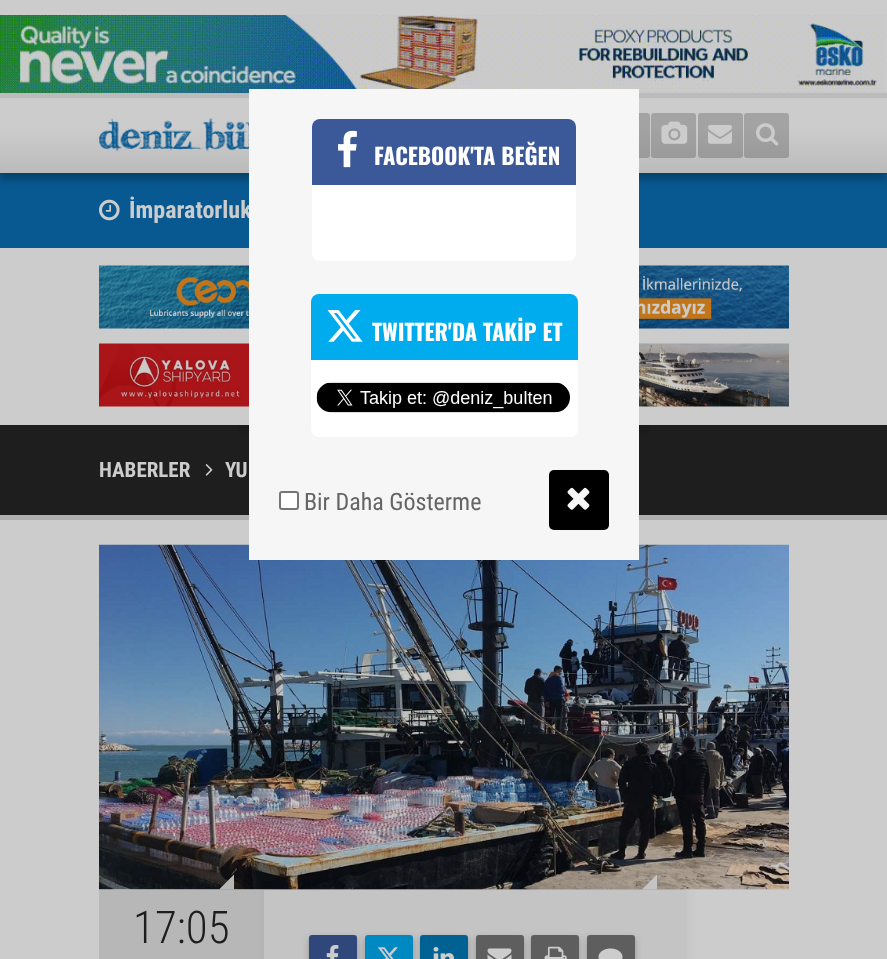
<!DOCTYPE html>
<meta charset="utf-8">
<style>body { margin: 0 } canvas { display: block }</style>
<canvas id="canvas" width="887" height="959"></canvas>
<img id="img1" src="images/1.png" hidden>
<img id="img2" src="images/2.png" hidden>
<img id="img3" src="images/3.png" hidden>
<img id="img4" src="images/4.png" hidden>
<img id="img5" src="images/5.png" hidden>
<img id="img6" src="images/6.png" hidden>
<img id="img7" src="images/7.png" hidden>
<img id="img8" src="images/8.png" hidden>
<img id="img9" src="images/9.png" hidden>
<img id="img10" src="images/10.png" hidden>
<img id="img11" src="images/11.png" hidden>
<img id="img12" src="images/12.png" hidden>
<img id="img13" src="images/13.png" hidden>
<img id="img14" src="images/14.png" hidden>
<img id="img15" src="images/15.png" hidden>
<img id="img16" src="images/16.png" hidden>
<img id="img17" src="images/17.png" hidden>
<img id="img18" src="images/18.png" hidden>
<img id="img19" src="images/19.png" hidden>
<img id="img20" src="images/20.png" hidden>
<script>
window.onload = function () {
    const canvas = document.getElementById('canvas');
    const context = canvas.getContext('2d');
    context.miterLimit = 4;
    context.fontKerning = 'normal';
    let gradient;

    context.fillStyle = 'rgb(204, 204, 204)';
    context.fillRect(0, 0, 887, 959);
    context.drawImage(document.getElementById('img1'), 0, 15, 886, 78);
    context.fillStyle = 'rgb(8, 89, 146)';
    context.fillRect(0, 173, 887, 75);
    context.fillStyle = 'rgba(0, 0, 0, 0.25)';
    context.filter = 'blur(4px)';
    context.beginPath();
    context.rect(-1, 101, 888, 79);
    context.fill();
    context.filter = 'none';
    gradient = context.createLinearGradient(444, 97, 444, 173);
    gradient.addColorStop(0.4, 'rgb(204, 204, 204)');
    gradient.addColorStop(1, 'rgb(187, 187, 187)');
    context.fillStyle = gradient;
    context.fillRect(0, 98, 887, 75);
    context.fillStyle = 'rgb(187, 187, 187)';
    context.fillRect(0, 93, 887, 5);
    context.drawImage(document.getElementById('img2'), 99, 118, 150, 34);
    context.fillStyle = 'rgba(0, 0, 0, 0.2)';
    context.beginPath();
    context.roundRect(605, 113, 45, 45, 3);
    context.fill();
    context.beginPath();
    context.roundRect(651, 113, 45, 45, 3);
    context.fill();
    context.drawImage(document.getElementById('img3'), 661, 121, 27, 23);
    context.beginPath();
    context.roundRect(698, 113, 45, 45, 3);
    context.fill();
    context.drawImage(document.getElementById('img4'), 708, 125, 24, 19);
    context.beginPath();
    context.roundRect(744, 113, 45, 45, 3);
    context.fill();
    context.drawImage(document.getElementById('img5'), 756, 123, 23, 23);
    context.drawImage(document.getElementById('img6'), 99, 199, 21, 22);
    context.drawImage(document.getElementById('img7'), 99, 265, 690, 64);
    context.drawImage(document.getElementById('img8'), 99, 343, 690, 64);
    context.fillStyle = 'rgb(30, 30, 30)';
    context.fillRect(0, 425, 887, 90);
    gradient = context.createRadialGradient(444, 4024.91, 0, 444, 4024.91, 628);
    gradient.addColorStop(0, 'rgba(0, 0, 0, 0.5)');
    gradient.addColorStop(0.4, 'rgba(0, 0, 0, 0)');
    context.fillStyle = gradient;
    context.beginPath();
    context.rect(238, 425, 412, 13);
    context.save();
    context.clip();
    context.scale(1, 66 / 628);
    context.fillRect(0, 0, 887, 9126);
    context.restore();
    context.drawImage(document.getElementById('img9'), 205, 464, 8, 12);
    context.fillStyle = 'rgb(174, 174, 174)';
    context.fillRect(0, 515, 887, 5);
    context.fillStyle = 'rgb(198, 198, 198)';
    context.fillRect(99, 889, 690, 1);
    context.drawImage(document.getElementById('img10'), 99, 544, 690, 346);
    context.fillStyle = 'rgb(183, 183, 183)';
    context.fillRect(99, 890, 165, 69);
    context.beginPath();
    context.moveTo(234, 889.5);
    context.lineTo(219, 889.5);
    context.lineTo(234, 874.5);
    context.closePath();
    context.fill();
    context.fillStyle = 'rgba(0, 0, 0, 0.15)';
    context.filter = 'blur(7.5px)';
    context.beginPath();
    context.rect(272, 887, 408, 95);
    context.fill();
    context.filter = 'none';
    context.fillStyle = 'rgb(196, 196, 196)';
    context.fillRect(264, 890, 423, 69);
    context.beginPath();
    context.moveTo(657, 889.5);
    context.lineTo(642, 889.5);
    context.lineTo(657, 874.5);
    context.closePath();
    context.fill();
    context.fillStyle = 'rgba(40, 40, 40, 0.3)';
    context.filter = 'blur(3px)';
    context.beginPath();
    context.roundRect(309, 938, 48, 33, 3);
    context.fill();
    context.filter = 'none';
    context.fillStyle = 'rgb(47, 71, 122)';
    context.beginPath();
    context.roundRect(309, 935, 48, 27, 3);
    context.fill();
    context.drawImage(document.getElementById('img11'), 326, 945, 13, 14);
    context.fillStyle = 'rgba(40, 40, 40, 0.3)';
    context.filter = 'blur(3px)';
    context.beginPath();
    context.roundRect(365, 938, 48, 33, 3);
    context.fill();
    context.filter = 'none';
    context.fillStyle = 'rgb(0, 137, 193)';
    context.beginPath();
    context.roundRect(365, 935, 48, 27, 3);
    context.fill();
    context.drawImage(document.getElementById('img12'), 377, 947, 21, 12);
    context.fillStyle = 'rgba(40, 40, 40, 0.3)';
    context.filter = 'blur(3px)';
    context.beginPath();
    context.roundRect(420, 938, 48, 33, 3);
    context.fill();
    context.filter = 'none';
    context.fillStyle = 'rgb(0, 98, 146)';
    context.beginPath();
    context.roundRect(420, 935, 48, 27, 3);
    context.fill();
    context.drawImage(document.getElementById('img13'), 433, 947, 22, 12);
    context.fillStyle = 'rgba(40, 40, 40, 0.3)';
    context.filter = 'blur(3px)';
    context.beginPath();
    context.roundRect(476, 938, 48, 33, 3);
    context.fill();
    context.filter = 'none';
    context.fillStyle = 'rgb(94, 94, 94)';
    context.beginPath();
    context.roundRect(476, 935, 48, 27, 3);
    context.fill();
    context.drawImage(document.getElementById('img14'), 487, 948, 25, 11);
    context.fillStyle = 'rgba(40, 40, 40, 0.3)';
    context.filter = 'blur(3px)';
    context.beginPath();
    context.roundRect(531, 938, 48, 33, 3);
    context.fill();
    context.filter = 'none';
    context.fillStyle = 'rgb(94, 94, 94)';
    context.beginPath();
    context.roundRect(531, 935, 48, 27, 3);
    context.fill();
    context.drawImage(document.getElementById('img15'), 544, 946, 23, 13);
    context.fillStyle = 'rgba(40, 40, 40, 0.3)';
    context.filter = 'blur(3px)';
    context.beginPath();
    context.roundRect(587, 938, 48, 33, 3);
    context.fill();
    context.filter = 'none';
    context.fillStyle = 'rgb(94, 94, 94)';
    context.beginPath();
    context.roundRect(587, 935, 48, 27, 3);
    context.fill();
    context.drawImage(document.getElementById('img16'), 598, 948, 25, 11);
    context.font = 'bold 24px Roboto Condensed';
    context.fillStyle = 'rgb(204, 204, 204)';
    context.fillText('İmparatorluk', 129, 218);
    context.font = 'bold 21px Roboto Condensed';
    context.fillText('HABERLER', 99, 477);
    context.fillText('YU', 225, 477);
    context.font = '300 45px Roboto Condensed';
    context.fillStyle = 'rgb(29, 29, 29)';
    context.fillText('17:05', 133, 943);
    context.fillStyle = 'rgb(246, 246, 246)';
    context.fillRect(249, 89, 390, 471);
    context.fillStyle = 'rgb(255, 255, 255)';
    context.beginPath();
    context.roundRect(312, 119, 264, 142, 8);
    context.fill();
    context.fillStyle = 'rgb(59, 89, 152)';
    context.beginPath();
    context.roundRect(312, 119, 264, 66, [8, 8, 0, 0]);
    context.fill();
    context.drawImage(document.getElementById('img17'), 338, 130, 19, 38);
    context.font = 'bold 22.5px Oswald';
    context.fillStyle = 'rgb(255, 255, 255)';
    context.fillText('FACEBOOK\'TA BEĞEN', 374, 165);
    context.beginPath();
    context.roundRect(311, 294, 267, 143, 8);
    context.fill();
    context.fillStyle = 'rgb(0, 172, 237)';
    context.beginPath();
    context.roundRect(311, 294, 267, 66, [8, 8, 0, 0]);
    context.fill();
    context.drawImage(document.getElementById('img18'), 327, 310, 36, 32);
    context.fillStyle = 'rgb(255, 255, 255)';
    context.fillText('TWITTER\'DA TAKİP ET', 372, 341);
    context.drawImage(document.getElementById('img19'), 316, 382, 254, 31);
    context.beginPath();
    context.roundRect(280, 492, 18, 17, 2);
    context.fill();
    context.strokeStyle = 'rgb(118, 118, 118)';
    context.lineWidth = 2;
    context.stroke();
    context.font = '24px Roboto Condensed';
    context.fillStyle = 'rgb(101, 101, 101)';
    context.fillText('Bir Daha Gösterme', 304, 510);
    context.fillStyle = 'rgb(0, 0, 0)';
    context.beginPath();
    context.roundRect(549, 470, 60, 60, 5);
    context.fill();
    context.drawImage(document.getElementById('img20'), 567, 487, 23, 23);
};
</script>
